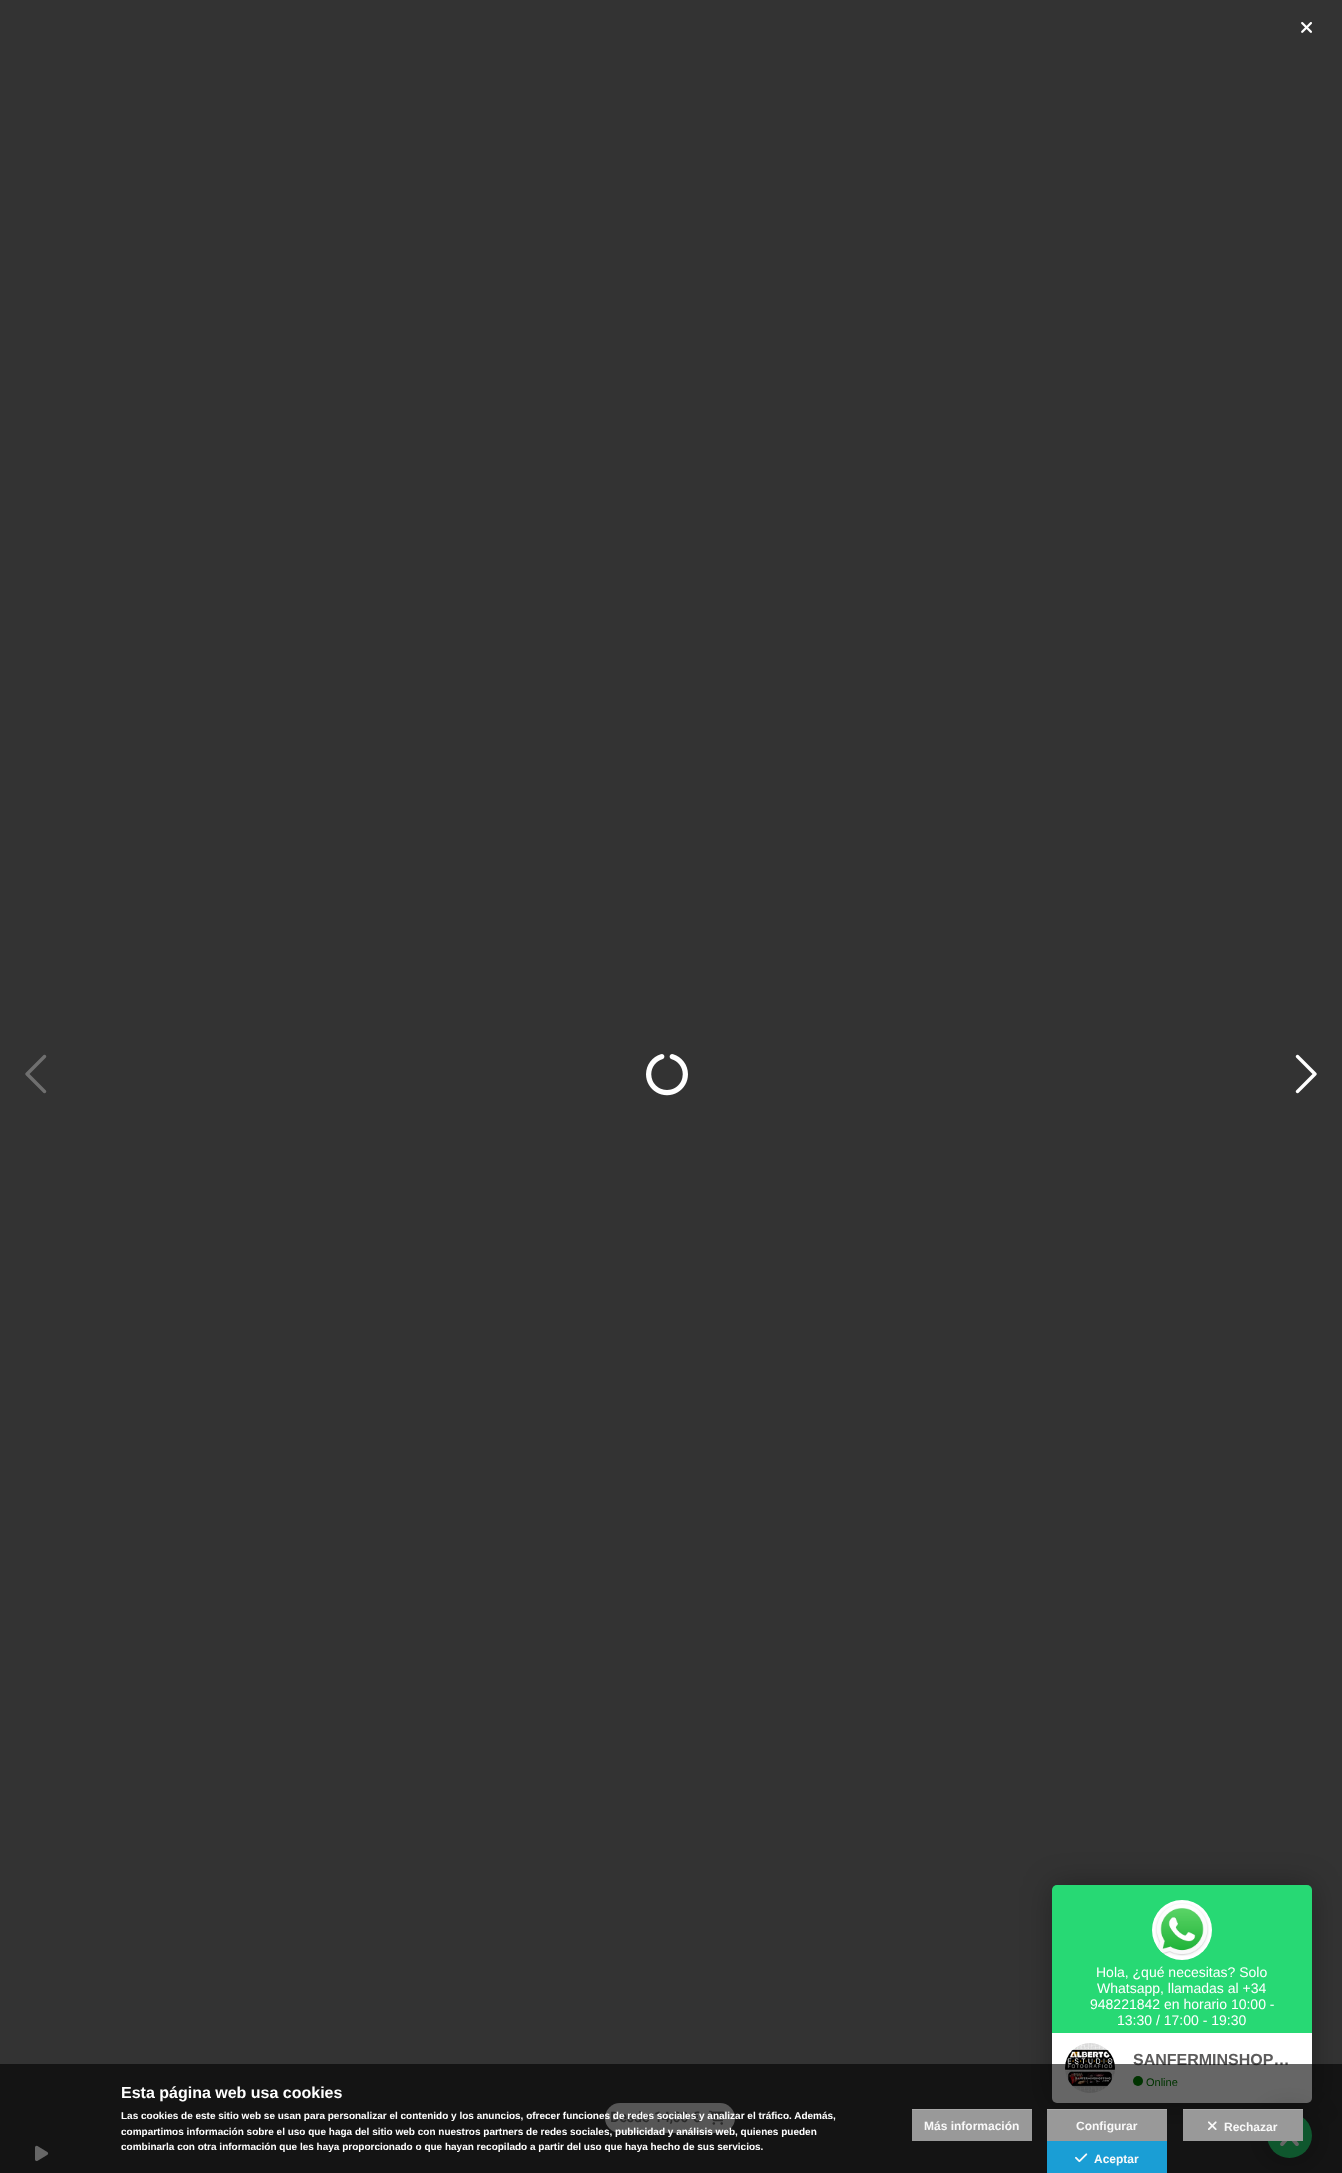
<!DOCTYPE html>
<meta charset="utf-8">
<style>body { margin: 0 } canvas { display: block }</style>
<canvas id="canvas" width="1342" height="2173"></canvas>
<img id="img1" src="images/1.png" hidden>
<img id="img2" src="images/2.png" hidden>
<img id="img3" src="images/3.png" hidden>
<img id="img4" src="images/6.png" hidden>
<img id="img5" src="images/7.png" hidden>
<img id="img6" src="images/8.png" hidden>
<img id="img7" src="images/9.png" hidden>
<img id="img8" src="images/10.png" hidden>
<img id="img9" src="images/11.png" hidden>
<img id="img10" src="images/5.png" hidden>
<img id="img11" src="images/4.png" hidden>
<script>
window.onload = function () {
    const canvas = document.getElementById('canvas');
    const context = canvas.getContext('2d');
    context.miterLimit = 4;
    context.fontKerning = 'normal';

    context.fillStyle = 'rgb(51, 51, 51)';
    context.fillRect(0, 0, 1342, 2173);
    context.fillStyle = 'rgba(0, 0, 0, 0.3)';
    context.filter = 'blur(15px)';
    context.beginPath();
    context.roundRect(1052, 1885, 260, 218, 5);
    context.fill();
    context.filter = 'none';
    context.fillStyle = 'rgb(39, 217, 116)';
    context.beginPath();
    context.roundRect(1052, 1885, 260, 148, [5, 5, 0, 0]);
    context.fill();
    context.fillStyle = 'rgb(255, 255, 255)';
    context.beginPath();
    context.arc(1182, 1930, 30, 0, 2 * Math.PI);
    context.fill();
    context.drawImage(document.getElementById('img1'), 1155, 1903, 54, 53);
    context.beginPath();
    context.roundRect(1052, 2033, 260, 70, [0, 0, 5, 5]);
    context.fill();
    context.drawImage(document.getElementById('img2'), 1065, 2043, 50, 50);
    context.fillStyle = 'rgb(0, 128, 0)';
    context.beginPath();
    context.arc(1138, 2081, 5, 0, 2 * Math.PI);
    context.fill();
    context.fillStyle = 'rgba(0, 0, 0, 0.3)';
    context.filter = 'blur(15px)';
    context.beginPath();
    context.roundRect(1267, 2113, 45, 45, 22.5);
    context.fill();
    context.filter = 'none';
    context.fillStyle = 'rgb(39, 217, 116)';
    context.beginPath();
    context.arc(1289.5, 2135.5, 22.5, 0, 2 * Math.PI);
    context.fill();
    context.drawImage(document.getElementById('img3'), 1280, 2141, 19, 5);
    context.drawImage(document.getElementById('img4'), 1301, 22, 11, 11);
    context.drawImage(document.getElementById('img5'), 646, 1054, 42, 42);
    context.drawImage(document.getElementById('img6'), 25, 1054, 22, 40);
    context.drawImage(document.getElementById('img7'), 1295, 1054, 22, 40);
    context.fillStyle = 'rgb(214, 214, 214)';
    context.beginPath();
    context.roundRect(605, 2103, 95, 30, [15, 0, 0, 15]);
    context.fill();
    context.beginPath();
    context.roundRect(700, 2103, 35, 30, [0, 15, 15, 0]);
    context.fill();
    context.drawImage(document.getElementById('img8'), 709, 2110, 16, 15);
    context.drawImage(document.getElementById('img9'), 35, 2145, 14, 17);
    context.font = '14px Liberation Sans';
    context.fillStyle = 'rgb(255, 255, 255)';
    context.fillText('Hola, ¿qué necesitas? Solo', 1096, 1977);
    context.fillText('Whatsapp, llamadas al +34', 1097, 1993);
    context.fillText('948221842 en horario 10:00 -', 1090, 2009);
    context.fillText('13:30 / 17:00 - 19:30', 1117, 2025);
    context.font = 'bold 16px Liberation Sans';
    context.fillStyle = 'rgb(92, 91, 91)';
    context.fillText('SANFERMINSHOP…', 1133, 2065);
    context.font = '11px Liberation Sans';
    context.fillStyle = 'rgb(0, 128, 0)';
    context.fillText('Online', 1146, 2086);
    context.font = 'bold 14px Roboto';
    context.fillStyle = 'rgb(102, 102, 102)';
    context.fillText('Desde', 610, 2122);
    context.fillText('14,00 €', 654, 2122);
    context.fillStyle = 'rgba(0, 0, 0, 0.6)';
    context.fillRect(0, 2064, 1342, 109);
    context.fillStyle = 'rgb(26, 158, 213)';
    context.fillRect(1047, 2141, 120, 32);
    context.font = 'bold 12px Liberation Sans';
    context.fillStyle = 'rgb(249, 249, 249)';
    context.fillText('Aceptar', 1094, 2163);
    context.drawImage(document.getElementById('img10'), 1075, 2153, 13, 10);
    context.fillStyle = 'rgb(153, 153, 153)';
    context.fillRect(1183, 2110, 120, 31);
    context.fillStyle = 'rgb(249, 249, 249)';
    context.fillText('Rechazar', 1224, 2131);
    context.drawImage(document.getElementById('img11'), 1208, 2121, 9, 9);
    context.fillStyle = 'rgb(168, 168, 168)';
    context.fillRect(1183, 2109, 120, 1);
    context.fillStyle = 'rgb(153, 153, 153)';
    context.fillRect(1047, 2110, 120, 31);
    context.fillStyle = 'rgb(249, 249, 249)';
    context.fillText('Configurar', 1076, 2130);
    context.fillStyle = 'rgb(168, 168, 168)';
    context.fillRect(1047, 2109, 120, 1);
    context.fillStyle = 'rgb(153, 153, 153)';
    context.fillRect(912, 2110, 120, 31);
    context.fillStyle = 'rgb(249, 249, 249)';
    context.fillText('Más información', 924, 2130);
    context.fillStyle = 'rgb(168, 168, 168)';
    context.fillRect(912, 2109, 120, 1);
    context.font = 'bold 10px Liberation Sans';
    context.fillStyle = 'rgb(255, 255, 255)';
    context.fillText('combinarla con otra información que les haya proporcionado o que hayan recopilado a partir del uso que haya hecho de sus servicios.', 121, 2150);
    context.fillText('compartimos información sobre el uso que haga del sitio web con nuestros partners de redes sociales, publicidad y análisis web, quienes pueden', 121, 2135);
    context.fillText('Las cookies de este sitio web se usan para personalizar el contenido y los anuncios, ofrecer funciones de redes sociales y analizar el tráfico. Además,', 121, 2119);
    context.font = 'bold 16px Liberation Sans';
    context.fillText('Esta página web usa cookies', 121, 2098);
};
</script>
